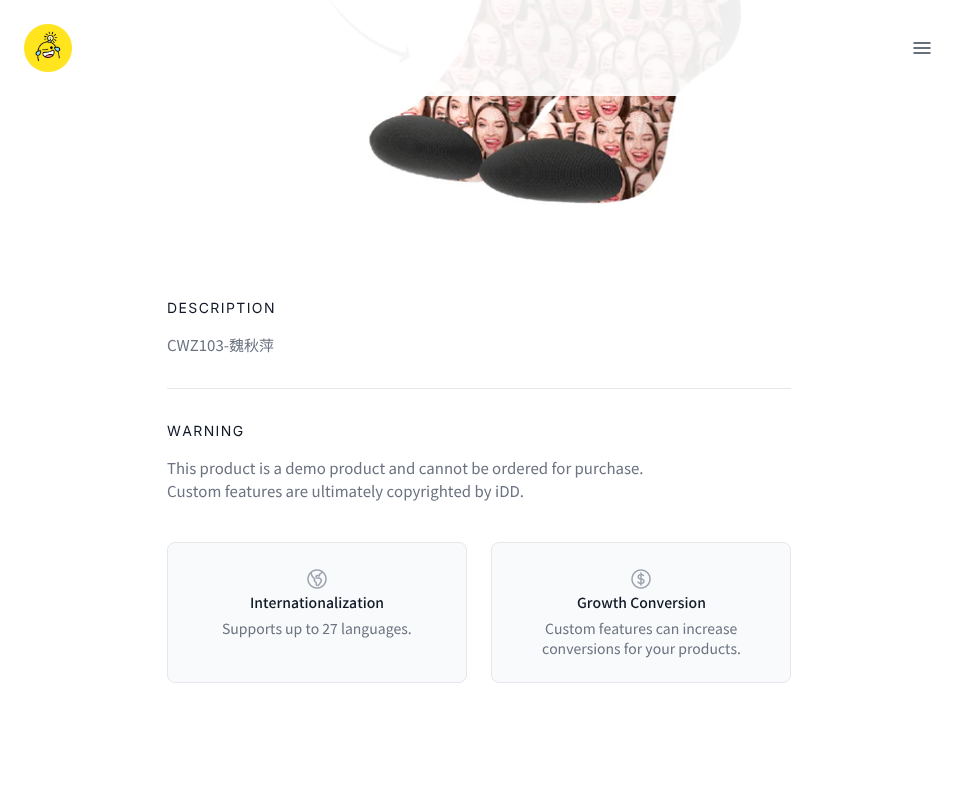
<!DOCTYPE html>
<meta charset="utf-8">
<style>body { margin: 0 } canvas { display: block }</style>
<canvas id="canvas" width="958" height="788"></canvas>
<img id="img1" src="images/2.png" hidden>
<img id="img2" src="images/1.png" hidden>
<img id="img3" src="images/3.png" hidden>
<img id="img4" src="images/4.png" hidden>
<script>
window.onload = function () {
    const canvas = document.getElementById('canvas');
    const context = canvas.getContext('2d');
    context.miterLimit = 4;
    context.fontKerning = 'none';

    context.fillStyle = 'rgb(255, 255, 255)';
    context.fillRect(0, 0, 958, 788);
    context.drawImage(document.getElementById('img1'), 328, 0, 414, 205);
    context.fillStyle = 'rgba(255, 255, 255, 0.92)';
    context.fillRect(328, 0, 414, 96);
    context.drawImage(document.getElementById('img2'), 24, 24, 48, 48);
    context.beginPath();
    context.moveTo(914, 43);
    context.lineTo(930, 43);
    context.moveTo(914, 48);
    context.lineTo(930, 48);
    context.moveTo(914, 53);
    context.lineTo(930, 53);
    context.strokeStyle = 'rgb(55, 65, 81)';
    context.lineWidth = 1.5;
    context.lineCap = 'round';
    context.lineJoin = 'round';
    context.stroke();
    context.fillStyle = 'rgb(229, 231, 235)';
    context.fillRect(167, 388, 624, 1);
    context.fillStyle = 'rgb(249, 250, 251)';
    context.beginPath();
    context.roundRect(167.5, 542.5, 299, 140, 7.5);
    context.fill();
    context.strokeStyle = 'rgb(229, 231, 235)';
    context.lineWidth = 1;
    context.lineJoin = 'miter';
    context.stroke();
    context.drawImage(document.getElementById('img3'), 307, 569, 20, 20);
    context.beginPath();
    context.roundRect(491.5, 542.5, 299, 140, 7.5);
    context.fill();
    context.stroke();
    context.drawImage(document.getElementById('img4'), 631, 569, 20, 20);
    context.letterSpacing = '1.4px';
    context.font = '14px Inter';
    context.fillStyle = 'rgb(17, 24, 39)';
    context.fillText('DESCRIPTION', 167, 313);
    context.letterSpacing = '0px';
    context.font = '15px Noto Sans SC';
    context.fillStyle = 'rgb(107, 114, 128)';
    context.fillText('CWZ103-魏秋萍', 167, 351);
    context.letterSpacing = '1.4px';
    context.font = '14px Inter';
    context.fillStyle = 'rgb(17, 24, 39)';
    context.fillText('WARNING', 167, 436);
    context.letterSpacing = '0px';
    context.font = '15px Noto Sans SC';
    context.fillStyle = 'rgb(107, 114, 128)';
    context.fillText('This product is a demo product and cannot be ordered for purchase.', 167, 474);
    context.fillText('Custom features are ultimately copyrighted by', 167, 497);
    context.fillText('iDD.', 495, 497);
    context.font = '500 14px Noto Sans SC';
    context.fillStyle = 'rgb(17, 24, 39)';
    context.fillText('Internationalization', 250, 608);
    context.font = '14px Noto Sans SC';
    context.fillStyle = 'rgb(107, 114, 128)';
    context.fillText('Supports up to 27 languages.', 222, 634);
    context.font = '500 14px Noto Sans SC';
    context.fillStyle = 'rgb(17, 24, 39)';
    context.fillText('Growth Conversion', 577, 608);
    context.font = '14px Noto Sans SC';
    context.fillStyle = 'rgb(107, 114, 128)';
    context.fillText('Custom features can increase', 545, 634);
    context.fillText('conversions for your products.', 542, 654);
};
</script>
